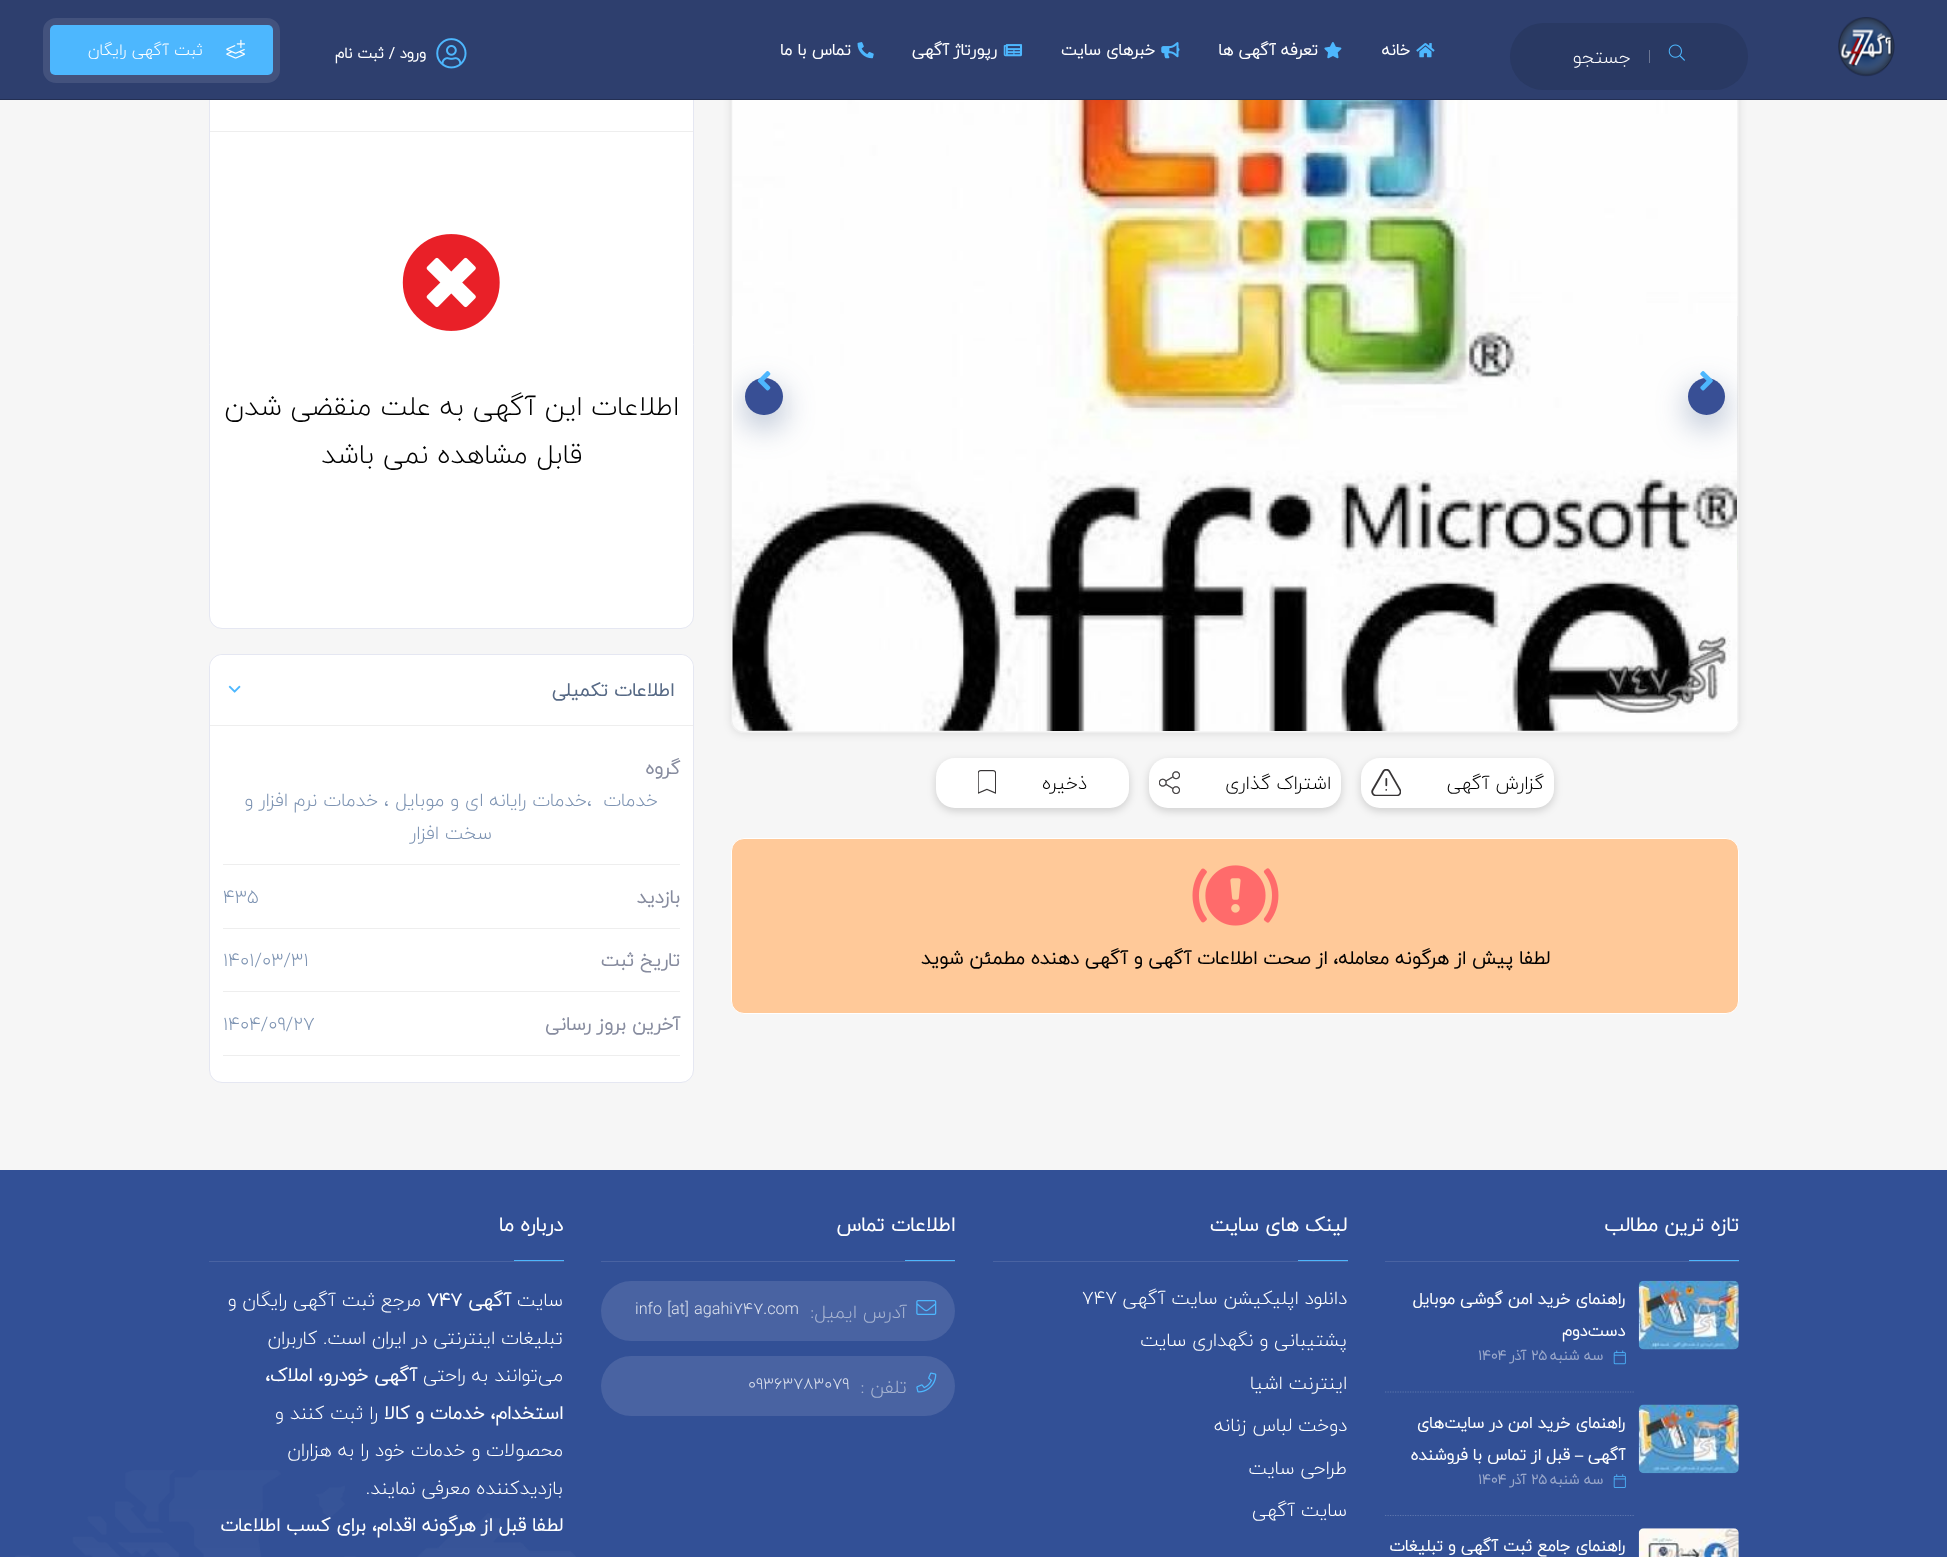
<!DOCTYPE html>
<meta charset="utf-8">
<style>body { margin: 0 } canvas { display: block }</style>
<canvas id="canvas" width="1947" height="1557"></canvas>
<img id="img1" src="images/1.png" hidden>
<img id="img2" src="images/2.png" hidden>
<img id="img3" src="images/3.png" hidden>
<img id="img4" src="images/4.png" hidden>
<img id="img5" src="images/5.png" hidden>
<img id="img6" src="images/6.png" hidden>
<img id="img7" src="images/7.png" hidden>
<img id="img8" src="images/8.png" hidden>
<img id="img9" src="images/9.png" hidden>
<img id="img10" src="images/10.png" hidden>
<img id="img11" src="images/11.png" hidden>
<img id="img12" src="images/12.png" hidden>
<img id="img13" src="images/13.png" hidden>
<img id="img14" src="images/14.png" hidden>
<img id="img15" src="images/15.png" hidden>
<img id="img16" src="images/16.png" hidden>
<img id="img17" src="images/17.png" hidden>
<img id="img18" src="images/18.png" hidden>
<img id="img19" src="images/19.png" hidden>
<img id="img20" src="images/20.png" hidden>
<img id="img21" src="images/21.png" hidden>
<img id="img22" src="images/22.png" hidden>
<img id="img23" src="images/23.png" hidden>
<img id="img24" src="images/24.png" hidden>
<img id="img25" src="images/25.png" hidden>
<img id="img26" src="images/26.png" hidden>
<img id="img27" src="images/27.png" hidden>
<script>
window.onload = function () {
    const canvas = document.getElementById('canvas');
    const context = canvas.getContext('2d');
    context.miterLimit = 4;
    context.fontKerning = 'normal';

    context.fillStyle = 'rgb(50, 80, 150)';
    context.fillRect(0, 0, 1947, 1557);
    context.fillStyle = 'rgb(246, 246, 246)';
    context.fillRect(0, 100, 1947, 1070);
    context.save();
    context.beginPath();
    context.moveTo(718, 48);
    context.lineTo(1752, 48);
    context.lineTo(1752, 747);
    context.lineTo(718, 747);
    context.closePath();
    context.moveTo(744, 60);
    context.lineTo(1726, 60);
    context.bezierCurveTo(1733, 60, 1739, 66, 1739, 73);
    context.lineTo(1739, 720);
    context.bezierCurveTo(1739, 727, 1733, 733, 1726, 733);
    context.lineTo(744, 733);
    context.bezierCurveTo(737, 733, 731, 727, 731, 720);
    context.lineTo(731, 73);
    context.bezierCurveTo(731, 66, 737, 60, 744, 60);
    context.closePath();
    context.clip('evenodd');
    context.fillStyle = 'rgba(0, 0, 0, 0.1)';
    context.filter = 'blur(4px)';
    context.beginPath();
    context.roundRect(731, 61, 1008, 673, 13);
    context.fill();
    context.filter = 'none';
    context.restore();
    context.beginPath();
    context.roundRect(731.5, 60.5, 1007, 672, 12.5);
    context.strokeStyle = 'rgb(238, 238, 238)';
    context.stroke();
    context.fillStyle = 'rgb(255, 255, 255)';
    context.beginPath();
    context.roundRect(733, 61, 1005, 670, 11);
    context.fill();
    context.beginPath();
    context.roundRect(209.5, 60.5, 484, 568, 12.5);
    context.fill();
    context.strokeStyle = 'rgb(229, 231, 242)';
    context.stroke();
    context.fillStyle = 'rgb(46, 63, 110)';
    context.fillRect(0, 0, 1947, 99);
    context.fillStyle = 'rgb(35, 47, 83)';
    context.fillRect(0, 99, 1947, 1);
    context.drawImage(document.getElementById('img1'), 1838, 17, 57, 60);
    context.fillStyle = 'rgb(41, 57, 99)';
    context.beginPath();
    context.roundRect(1510, 23, 238, 67, 33.5);
    context.fill();
    context.drawImage(document.getElementById('img2'), 1668, 44, 17, 17);
    context.fillStyle = 'rgb(107, 118, 147)';
    context.fillRect(1649, 50, 1, 13);
    context.drawImage(document.getElementById('img3'), 1416, 43, 19, 15);
    context.drawImage(document.getElementById('img4'), 1324, 42, 18, 17);
    context.drawImage(document.getElementById('img5'), 1161, 42, 19, 17);
    context.drawImage(document.getElementById('img6'), 1003, 44, 20, 13);
    context.drawImage(document.getElementById('img7'), 857, 42, 17, 17);
    context.drawImage(document.getElementById('img8'), 436, 38, 31, 31);
    context.beginPath();
    context.roundRect(47, 22, 229, 57, 9);
    context.strokeStyle = 'rgb(67, 82, 125)';
    context.lineWidth = 8;
    context.stroke();
    context.fillStyle = 'rgb(77, 183, 254)';
    context.beginPath();
    context.roundRect(50, 25, 223, 50, 5);
    context.fill();
    context.drawImage(document.getElementById('img9'), 226, 39, 19, 20);
    context.drawImage(document.getElementById('img10'), 1737, 100, 1, 622);
    context.drawImage(document.getElementById('img11'), 732, 100, 1005, 631);
    context.save();
    context.beginPath();
    context.roundRect(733, 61, 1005, 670, 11);
    context.clip();
    context.fillStyle = 'rgba(58, 87, 135, 0.45)';
    context.filter = 'blur(16px)';
    context.beginPath();
    context.roundRect(1688, 389, 37, 37, 18.5);
    context.fill();
    context.filter = 'none';
    context.restore();
    context.fillStyle = 'rgb(56, 79, 149)';
    context.beginPath();
    context.arc(1706.5, 396.5, 18.5, 0, 2 * Math.PI);
    context.fill();
    context.drawImage(document.getElementById('img12'), 1700, 371, 13, 20);
    context.save();
    context.beginPath();
    context.roundRect(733, 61, 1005, 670, 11);
    context.clip();
    context.fillStyle = 'rgba(58, 87, 135, 0.45)';
    context.filter = 'blur(16px)';
    context.beginPath();
    context.roundRect(745, 389, 38, 37, 18.5);
    context.fill();
    context.filter = 'none';
    context.restore();
    context.beginPath();
    context.roundRect(745, 378, 38, 37, 18.5);
    context.fill();
    context.drawImage(document.getElementById('img13'), 757, 371, 14, 20);
    context.fillStyle = 'rgba(0, 0, 0, 0.16)';
    context.filter = 'blur(4px)';
    context.beginPath();
    context.roundRect(1361, 761, 193, 50, 19);
    context.fill();
    context.filter = 'none';
    context.fillStyle = 'rgb(255, 255, 255)';
    context.beginPath();
    context.roundRect(1361, 758, 193, 50, 19);
    context.fill();
    context.drawImage(document.getElementById('img14'), 1371, 769, 30, 27);
    context.fillStyle = 'rgba(0, 0, 0, 0.16)';
    context.filter = 'blur(4px)';
    context.beginPath();
    context.roundRect(1149, 761, 192, 50, 19);
    context.fill();
    context.filter = 'none';
    context.fillStyle = 'rgb(255, 255, 255)';
    context.beginPath();
    context.roundRect(1149, 758, 192, 50, 19);
    context.fill();
    context.drawImage(document.getElementById('img15'), 1159, 771, 21, 23);
    context.fillStyle = 'rgba(0, 0, 0, 0.16)';
    context.filter = 'blur(4px)';
    context.beginPath();
    context.roundRect(936, 761, 193, 50, 19);
    context.fill();
    context.filter = 'none';
    context.fillStyle = 'rgb(255, 255, 255)';
    context.beginPath();
    context.roundRect(936, 758, 193, 50, 19);
    context.fill();
    context.drawImage(document.getElementById('img16'), 978, 770, 18, 24);
    context.fillStyle = 'rgb(255, 201, 153)';
    context.beginPath();
    context.roundRect(731.5, 838.5, 1007, 175, 12.5);
    context.fill();
    context.strokeStyle = 'rgb(255, 255, 255)';
    context.lineWidth = 1;
    context.stroke();
    context.drawImage(document.getElementById('img17'), 1192, 865, 87, 61);
    context.fillStyle = 'rgb(238, 238, 238)';
    context.fillRect(210, 131, 483, 1);
    context.drawImage(document.getElementById('img18'), 402, 234, 98, 97);
    context.fillStyle = 'rgb(255, 255, 255)';
    context.beginPath();
    context.roundRect(209.5, 654.5, 484, 428, 12.5);
    context.fill();
    context.strokeStyle = 'rgb(229, 231, 242)';
    context.stroke();
    context.beginPath();
    context.roundRect(210, 655, 483, 71, [13, 13, 0, 0]);
    context.fill();
    context.fillStyle = 'rgb(238, 238, 238)';
    context.fillRect(210, 725, 483, 1);
    context.drawImage(document.getElementById('img19'), 228, 685, 13, 8);
    context.fillRect(223, 864, 457, 1);
    context.fillRect(223, 928, 457, 1);
    context.fillRect(223, 991, 457, 1);
    context.fillRect(223, 1055, 457, 1);
    context.fillStyle = 'rgb(73, 99, 162)';
    context.fillRect(1385, 1261, 354, 1);
    context.fillStyle = 'rgb(77, 183, 254)';
    context.fillRect(1689, 1260, 50, 1);
    context.drawImage(document.getElementById('img20'), 1638, 1280, 101, 70);
    context.drawImage(document.getElementById('img21'), 1613, 1350, 13, 15);
    context.beginPath();
    context.moveTo(1385, 1392);
    context.lineTo(1635, 1392);
    context.strokeStyle = 'rgb(93, 117, 172)';
    context.lineWidth = 1.2;
    context.setLineDash([1.25, 1.25]);
    context.stroke();
    context.drawImage(document.getElementById('img22'), 1638, 1404, 101, 70);
    context.drawImage(document.getElementById('img23'), 1613, 1474, 13, 14);
    context.beginPath();
    context.moveTo(1385, 1515.5);
    context.lineTo(1635, 1515.5);
    context.stroke();
    context.drawImage(document.getElementById('img24'), 1638, 1528, 101, 29);
    context.fillStyle = 'rgb(73, 99, 162)';
    context.fillRect(993, 1261, 355, 1);
    context.fillStyle = 'rgb(77, 183, 254)';
    context.fillRect(1298, 1260, 50, 1);
    context.fillStyle = 'rgb(73, 99, 162)';
    context.fillRect(601, 1261, 354, 1);
    context.fillStyle = 'rgb(77, 183, 254)';
    context.fillRect(905, 1260, 50, 1);
    context.fillStyle = 'rgb(73, 99, 162)';
    context.beginPath();
    context.roundRect(601, 1281, 354, 60, 30);
    context.fill();
    context.drawImage(document.getElementById('img25'), 916, 1300, 21, 15);
    context.beginPath();
    context.roundRect(601, 1356, 354, 60, 30);
    context.fill();
    context.drawImage(document.getElementById('img26'), 916, 1372, 21, 21);
    context.fillRect(209, 1261, 355, 1);
    context.fillStyle = 'rgb(77, 183, 254)';
    context.fillRect(514, 1260, 50, 1);
    context.drawImage(document.getElementById('img27'), 15, 1470, 561, 87);
    context.direction = 'rtl';
    context.font = '300 18.75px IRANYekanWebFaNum';
    context.fillStyle = 'rgb(255, 255, 255)';
    context.fillText('جستجو', 1631, 63);
    context.font = 'bold 16.25px IRANYekanWebFaNum';
    context.fillText('خانه', 1410, 55);
    context.fillText('تعرفه آگهی ها', 1318, 55);
    context.fillText('خبرهای سایت', 1155, 55);
    context.fillText('رپورتاژ آگهی', 997, 55);
    context.fillText('تماس با ما', 851, 55);
    context.font = 'bold 15px IRANYekanWebFaNum';
    context.fillText('ورود / ثبت نام', 426, 58);
    context.font = '300 16.25px IRANYekanWebFaNum';
    context.fillText('ثبت آگهی رایگان', 203, 55);
    context.font = '300 18.75px IRANYekanWebFaNum';
    context.fillStyle = 'rgb(0, 0, 0)';
    context.fillText('گزارش آگهی', 1544, 789);
    context.fillText('اشتراک گذاری', 1331, 789);
    context.fillText('ذخیره', 1087, 789);
    context.font = 'bold 18.75px IRANYekanWebFaNum';
    context.fillText('لطفا پیش از هرگونه معامله، از صحت اطلاعات آگهی و آگهی دهنده مطمئن شوید', 1550, 964);
    context.font = '300 27.5px IRANYekanWebFaNum';
    context.fillText('اطلاعات این آگهی به علت منقضی شدن', 679, 415);
    context.fillText('قابل مشاهده نمی باشد', 582, 463);
    context.font = 'bold 18.75px IRANYekanWebFaNum';
    context.fillStyle = 'rgb(86, 105, 133)';
    context.fillText('اطلاعات تکمیلی', 674, 696);
    context.fillStyle = 'rgb(135, 140, 159)';
    context.fillText('گروه', 680, 774);
    context.font = '300 18.75px IRANYekanWebFaNum';
    context.fillStyle = 'rgb(125, 147, 178)';
    context.fillText('خدمات', 658, 806);
    context.direction = 'ltr';
    context.fillText('،', 587, 806);
    context.direction = 'rtl';
    context.fillText('خدمات رایانه ای و موبایل', 587, 806);
    context.fillText('، خدمات نرم افزار و', 389, 806);
    context.fillText('سخت افزار', 492, 839);
    context.font = 'bold 18.75px IRANYekanWebFaNum';
    context.fillStyle = 'rgb(135, 140, 159)';
    context.fillText('بازدید', 680, 903);
    context.direction = 'ltr';
    context.font = '300 18.75px IRANYekanWebFaNum';
    context.fillStyle = 'rgb(125, 147, 178)';
    context.fillText('435', 223, 903);
    context.direction = 'rtl';
    context.font = 'bold 18.75px IRANYekanWebFaNum';
    context.fillStyle = 'rgb(135, 140, 159)';
    context.fillText('تاریخ ثبت', 680, 966);
    context.direction = 'ltr';
    context.font = '300 18.75px IRANYekanWebFaNum';
    context.fillStyle = 'rgb(125, 147, 178)';
    context.fillText('1401/03/31', 223, 966);
    context.direction = 'rtl';
    context.font = 'bold 18.75px IRANYekanWebFaNum';
    context.fillStyle = 'rgb(135, 140, 159)';
    context.fillText('آخرین بروز رسانی', 680, 1030);
    context.direction = 'ltr';
    context.font = '300 18.75px IRANYekanWebFaNum';
    context.fillStyle = 'rgb(125, 147, 178)';
    context.fillText('1404/09/27', 223, 1030);
    context.direction = 'rtl';
    context.font = 'bold 20px IRANYekanWebFaNum';
    context.fillStyle = 'rgb(255, 255, 255)';
    context.fillText('تازه ترین مطالب', 1739, 1231);
    context.font = 'bold 16.25px IRANYekanWebFaNum';
    context.fillText('راهنمای خرید امن گوشی موبایل', 1625, 1304);
    context.fillText('دست‌دوم', 1625, 1336);
    context.font = 'bold 14px IRANYekanWebFaNum';
    context.fillStyle = 'rgb(155, 169, 204)';
    context.fillText('سه شنبه', 1603, 1360);
    context.direction = 'ltr';
    context.fillText('25', 1531, 1360);
    context.direction = 'rtl';
    context.fillText('آذر', 1526, 1360);
    context.direction = 'ltr';
    context.fillText('1404', 1478, 1360);
    context.direction = 'rtl';
    context.font = 'bold 16.25px IRANYekanWebFaNum';
    context.fillStyle = 'rgb(255, 255, 255)';
    context.fillText('راهنمای خرید امن در سایت', 1625, 1428);
    context.fillText('های', 1444, 1428);
    context.fillText('آگهی', 1625, 1460);
    context.font = 'bold 16.25px Liberation Serif';
    context.fillText('–', 1583, 1460);
    context.font = 'bold 16.25px IRANYekanWebFaNum';
    context.fillText('قبل از تماس با فروشنده', 1570, 1460);
    context.font = 'bold 14px IRANYekanWebFaNum';
    context.fillStyle = 'rgb(155, 169, 204)';
    context.fillText('سه شنبه', 1603, 1484);
    context.direction = 'ltr';
    context.fillText('25', 1531, 1484);
    context.direction = 'rtl';
    context.fillText('آذر', 1526, 1484);
    context.direction = 'ltr';
    context.fillText('1404', 1478, 1484);
    context.direction = 'rtl';
    context.font = 'bold 16.25px IRANYekanWebFaNum';
    context.fillStyle = 'rgb(255, 255, 255)';
    context.fillText('راهنمای جامع ثبت آگهی و تبلیغات', 1625, 1551);
    context.font = 'bold 20px IRANYekanWebFaNum';
    context.fillText('لینک های سایت', 1347, 1231);
    context.font = '300 18.75px IRANYekanWebFaNum';
    context.fillText('دانلود اپلیکیشن سایت آگهی', 1347, 1304);
    context.direction = 'ltr';
    context.fillText('747', 1082, 1304);
    context.direction = 'rtl';
    context.fillText('پشتیبانی و نگهداری سایت', 1347, 1346);
    context.fillText('اینترنت اشیا', 1347, 1389);
    context.fillText('دوخت لباس زنانه', 1347, 1431);
    context.fillText('طراحی سایت', 1347, 1474);
    context.fillText('سایت آگهی', 1347, 1516);
    context.font = 'bold 20px IRANYekanWebFaNum';
    context.fillText('اطلاعات تماس', 955, 1231);
    context.font = '300 18.75px IRANYekanWebFaNum';
    context.fillStyle = 'rgb(166, 179, 209)';
    context.fillText('آدرس ایمیل:', 907, 1318);
    context.direction = 'ltr';
    context.font = '300 16.25px IRANYekanWebFaNum';
    context.fillStyle = 'rgb(220, 225, 237)';
    context.fillText('info [at] agahi747.com', 635, 1314);
    context.direction = 'rtl';
    context.font = '300 18.75px IRANYekanWebFaNum';
    context.fillStyle = 'rgb(166, 179, 209)';
    context.fillText('تلفن :', 907, 1393);
    context.direction = 'ltr';
    context.font = '300 16.25px IRANYekanWebFaNum';
    context.fillStyle = 'rgb(220, 225, 237)';
    context.fillText('09363783079', 748, 1389);
    context.direction = 'rtl';
    context.font = 'bold 20px IRANYekanWebFaNum';
    context.fillStyle = 'rgb(255, 255, 255)';
    context.fillText('درباره ما', 563, 1231);
    context.font = '300 18.75px IRANYekanWebFaNum';
    context.fillText('سایت', 563, 1306);
    context.font = 'bold 18.75px IRANYekanWebFaNum';
    context.fillText('آگهی', 511, 1306);
    context.direction = 'ltr';
    context.fillText('747', 427, 1306);
    context.direction = 'rtl';
    context.font = '300 18.75px IRANYekanWebFaNum';
    context.fillText('مرجع ثبت آگهی رایگان و', 421, 1306);
    context.fillText('تبلیغات اینترنتی در ایران است. کاربران', 563, 1344);
    context.fillText('می‌توانند به راحتی', 563, 1381);
    context.font = 'bold 18.75px IRANYekanWebFaNum';
    context.fillText('آگهی خودرو، املاک،', 417, 1381);
    context.fillText('استخدام، خدمات و کالا', 563, 1419);
    context.font = '300 18.75px IRANYekanWebFaNum';
    context.fillText('را ثبت کنند و', 378, 1419);
    context.fillText('محصولات و خدمات خود را به هزاران', 563, 1456);
    context.fillText('بازدیدکننده معرفی نمایند.', 563, 1494);
    context.font = 'bold 18.75px IRANYekanWebFaNum';
    context.fillText('لطفا قبل از هرگونه اقدام، برای کسب اطلاعات', 563, 1531);
};
</script>
